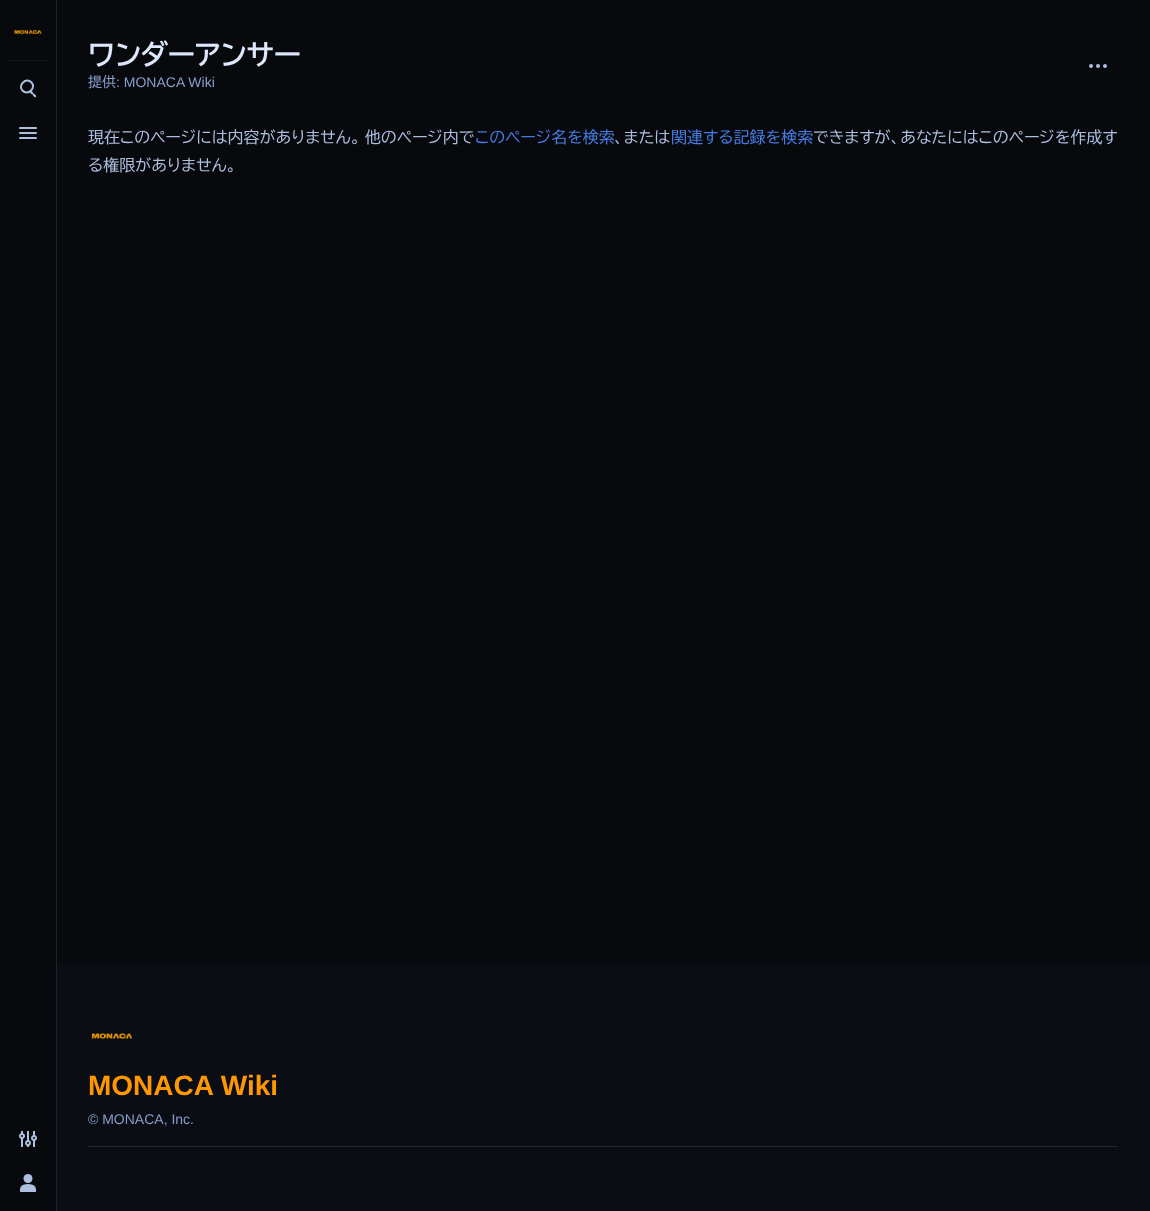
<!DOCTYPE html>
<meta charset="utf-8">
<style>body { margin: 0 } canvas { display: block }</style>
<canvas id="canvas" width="1150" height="1211"></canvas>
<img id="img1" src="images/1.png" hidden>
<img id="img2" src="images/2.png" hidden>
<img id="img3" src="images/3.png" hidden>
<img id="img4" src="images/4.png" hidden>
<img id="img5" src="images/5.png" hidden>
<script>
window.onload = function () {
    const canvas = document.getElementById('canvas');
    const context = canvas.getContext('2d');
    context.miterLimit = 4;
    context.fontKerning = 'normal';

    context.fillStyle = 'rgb(7, 9, 13)';
    context.fillRect(0, 0, 1150, 1211);
    context.fillStyle = 'rgb(32, 34, 37)';
    context.fillRect(56, 0, 1, 1211);
    context.fillStyle = 'rgb(19, 21, 25)';
    context.fillRect(8, 60, 40, 1);
    context.drawImage(document.getElementById('img1'), 14, 30, 28, 4);
    context.fillStyle = 'rgb(173, 190, 223)';
    context.beginPath();
    context.moveTo(30, 91);
    context.bezierCurveTo(31.5, 90, 33, 92.5, 33.5, 93.5);
    context.bezierCurveTo(34.5, 94, 37, 95.5, 36, 97);
    context.bezierCurveTo(34.5, 98, 33, 95.5, 32.5, 94.5);
    context.bezierCurveTo(31.5, 94, 29, 92.5, 30, 91);
    context.closePath();
    context.fill();
    context.beginPath();
    context.moveTo(23, 82.5);
    context.bezierCurveTo(28.5, 76.5, 37, 85, 31, 90.5);
    context.bezierCurveTo(25.5, 96.5, 17, 88, 23, 82.5);
    context.closePath();
    context.strokeStyle = 'rgb(173, 190, 223)';
    context.lineWidth = 2;
    context.stroke();
    context.beginPath();
    context.roundRect(19, 127, 18, 2, 1);
    context.fill();
    context.beginPath();
    context.roundRect(19, 132, 18, 2, 1);
    context.fill();
    context.beginPath();
    context.roundRect(19, 137, 18, 2, 1);
    context.fill();
    context.drawImage(document.getElementById('img2'), 19, 1131, 18, 16);
    context.drawImage(document.getElementById('img3'), 20, 1174, 16, 18);
    context.drawImage(document.getElementById('img4'), 1089, 64, 18, 4);
    context.fillStyle = 'rgb(10, 13, 20)';
    context.fillRect(57, 964, 1093, 247);
    context.drawImage(document.getElementById('img5'), 91, 1033, 41, 6);
    context.fillStyle = 'rgb(35, 37, 44)';
    context.fillRect(88, 1146, 1030, 1);
    context.font = 'bold 28px BIZ UDPGothic';
    context.fillStyle = 'rgb(221, 232, 253)';
    context.fillText('ワンダーアンサー', 88, 65);
    context.font = '14px BIZ UDPGothic';
    context.fillStyle = 'rgb(135, 159, 203)';
    context.fillText('提供', 88, 87);
    context.font = '14px Liberation Sans';
    context.fillText(': MONACA Wiki', 116, 87);
    context.wordSpacing = '-1px';
    context.font = '16px BIZ UDPGothic';
    context.fillStyle = 'rgb(173, 190, 223)';
    context.fillText('現在このページには内容がありません。 他のページ内で', 88, 143);
    context.wordSpacing = '0px';
    context.fillStyle = 'rgb(70, 123, 227)';
    context.fillText('このページ名を検索', 475, 143);
    context.fillStyle = 'rgb(173, 190, 223)';
    context.fillText('、または', 614, 143);
    context.fillStyle = 'rgb(70, 123, 227)';
    context.fillText('関連する記録を検索', 671, 143);
    context.fillStyle = 'rgb(173, 190, 223)';
    context.fillText('できますが、あなたにはこのページを作成す', 813, 143);
    context.fillText('る権限がありません。', 88, 171);
    context.font = 'bold 28px Liberation Sans';
    context.fillStyle = 'rgb(255, 152, 0)';
    context.fillText('MONACA Wiki', 88, 1095);
    context.font = '14px Liberation Sans';
    context.fillStyle = 'rgb(135, 159, 203)';
    context.fillText('©︎ MONACA, Inc.', 88, 1124);
};
</script>
